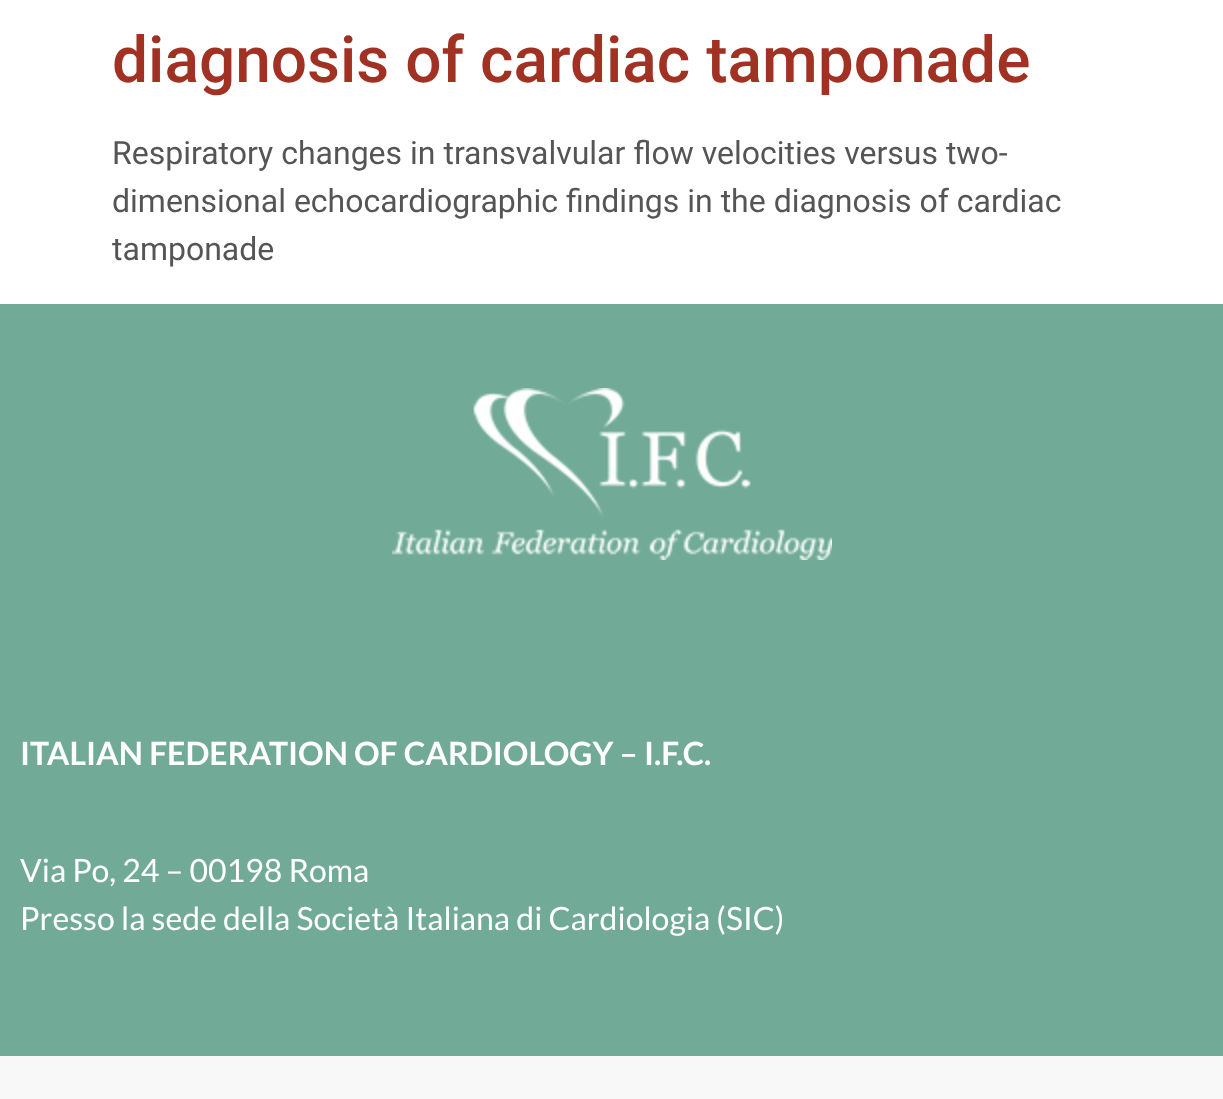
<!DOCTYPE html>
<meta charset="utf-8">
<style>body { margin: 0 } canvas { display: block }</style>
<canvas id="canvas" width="1223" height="1099"></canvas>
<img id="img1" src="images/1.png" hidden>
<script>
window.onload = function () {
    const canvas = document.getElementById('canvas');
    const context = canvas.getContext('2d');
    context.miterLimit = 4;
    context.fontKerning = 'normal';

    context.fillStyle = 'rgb(255, 255, 255)';
    context.fillRect(0, 0, 1223, 1099);
    context.fillStyle = 'rgb(113, 171, 151)';
    context.fillRect(0, 304, 1223, 752);
    context.drawImage(document.getElementById('img1'), 392, 388, 440, 172);
    context.fillStyle = 'rgb(248, 248, 248)';
    context.fillRect(0, 1056, 1223, 43);
    context.font = '500 64px Roboto';
    context.fillStyle = 'rgb(160, 49, 35)';
    context.fillText('diagnosis of cardiac tamponade', 112, 82);
    context.font = '32px Roboto';
    context.fillStyle = 'rgb(85, 85, 85)';
    context.fillText('Respiratory changes in transvalvular flow velocities versus two-', 112, 164);
    context.fillText('dimensional echocardiographic findings in the diagnosis of cardiac', 112, 212);
    context.fillText('tamponade', 112, 260);
    context.font = 'bold 32px Lato';
    context.fillStyle = 'rgb(255, 255, 255)';
    context.fillText('ITALIAN FEDERATION OF CARDIOLOGY – I.F.C.', 20, 765);
    context.font = '32px Lato';
    context.fillText('Via Po, 24 – 00198 Roma', 20, 882);
    context.fillText('Presso la sede della Società Italiana di Cardiologia (SIC)', 20, 930);
};
</script>
